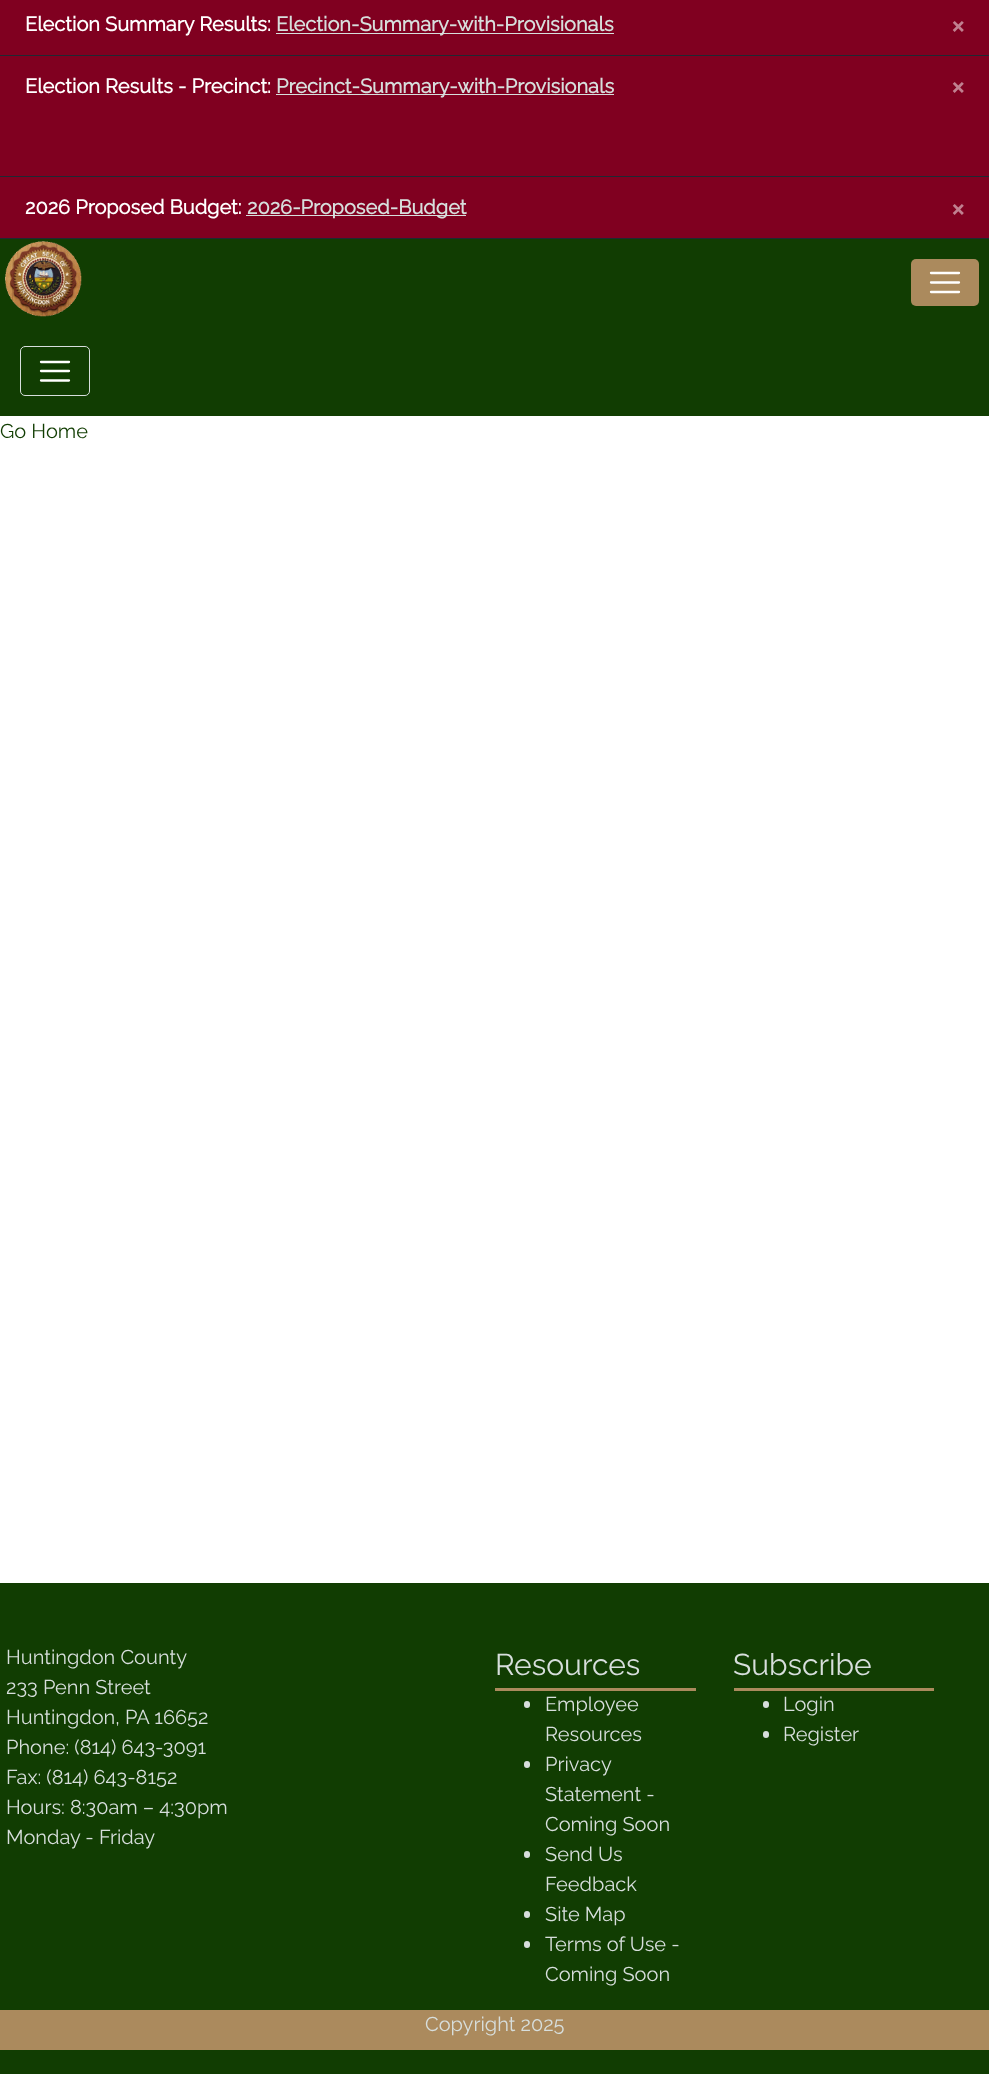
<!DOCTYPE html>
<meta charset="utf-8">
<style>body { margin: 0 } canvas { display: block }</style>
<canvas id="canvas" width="989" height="2074"></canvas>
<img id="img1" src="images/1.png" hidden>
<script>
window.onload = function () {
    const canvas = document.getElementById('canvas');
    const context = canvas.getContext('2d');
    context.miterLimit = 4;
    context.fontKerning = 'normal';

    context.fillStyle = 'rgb(255, 255, 255)';
    context.fillRect(0, 0, 989, 2074);
    context.fillStyle = 'rgb(128, 0, 32)';
    context.fillRect(0, 0, 989, 55);
    context.fillStyle = 'rgb(31, 41, 51)';
    context.fillRect(0, 55, 989, 1);
    context.fillStyle = 'rgb(215, 222, 220)';
    context.fillRect(276, 33, 338, 1);
    context.fillStyle = 'rgb(128, 0, 32)';
    context.fillRect(0, 56, 989, 182);
    context.fillStyle = 'rgb(31, 41, 51)';
    context.fillRect(0, 176, 989, 1);
    context.fillStyle = 'rgb(215, 222, 220)';
    context.fillRect(276, 94, 338, 1);
    context.fillStyle = 'rgb(31, 41, 51)';
    context.fillRect(0, 238, 989, 1);
    context.fillStyle = 'rgb(215, 222, 220)';
    context.fillRect(246, 215, 220, 1);
    context.fillStyle = 'rgb(17, 61, 2)';
    context.fillRect(0, 239, 989, 177);
    context.drawImage(document.getElementById('img1'), 5, 241, 77, 76);
    context.fillStyle = 'rgb(171, 138, 93)';
    context.beginPath();
    context.roundRect(911, 259, 68, 47, 5);
    context.fill();
    context.beginPath();
    context.moveTo(931, 273);
    context.lineTo(959, 273);
    context.moveTo(931, 282.5);
    context.lineTo(959, 282.5);
    context.moveTo(931, 292);
    context.lineTo(959, 292);
    context.strokeStyle = 'rgb(255, 255, 255)';
    context.lineWidth = 2.3;
    context.lineCap = 'round';
    context.stroke();
    context.beginPath();
    context.roundRect(20.5, 346.5, 69, 49, 4.5);
    context.strokeStyle = 'rgb(215, 222, 220)';
    context.lineWidth = 1;
    context.stroke();
    context.beginPath();
    context.moveTo(41, 362);
    context.lineTo(69, 362);
    context.moveTo(41, 371);
    context.lineTo(69, 371);
    context.moveTo(41, 380.5);
    context.lineTo(69, 380.5);
    context.strokeStyle = 'rgb(255, 255, 255)';
    context.lineWidth = 2.3;
    context.stroke();
    context.fillStyle = 'rgb(17, 61, 2)';
    context.fillRect(0, 1583, 989, 491);
    context.fillStyle = 'rgb(171, 138, 93)';
    context.fillRect(495, 1688, 201, 3);
    context.fillStyle = 'rgb(215, 222, 220)';
    context.beginPath();
    context.roundRect(524, 1701, 6, 7, 3);
    context.fill();
    context.beginPath();
    context.roundRect(524, 1761, 6, 7, 3);
    context.fill();
    context.beginPath();
    context.roundRect(524, 1851, 6, 7, 3);
    context.fill();
    context.beginPath();
    context.roundRect(524, 1911, 6, 7, 3);
    context.fill();
    context.beginPath();
    context.roundRect(524, 1941, 6, 7, 3);
    context.fill();
    context.fillStyle = 'rgb(171, 138, 93)';
    context.fillRect(734, 1688, 200, 3);
    context.fillStyle = 'rgb(215, 222, 220)';
    context.beginPath();
    context.roundRect(763, 1701, 6, 7, 3);
    context.fill();
    context.beginPath();
    context.roundRect(763, 1731, 6, 7, 3);
    context.fill();
    context.fillStyle = 'rgb(171, 138, 93)';
    context.fillRect(0, 2010, 989, 40);
    context.font = 'bold 20px Raleway';
    context.fillStyle = 'rgb(255, 255, 255)';
    context.fillText('Election Summary Results:', 25, 31);
    context.fillStyle = 'rgb(215, 222, 220)';
    context.fillText('Election-Summary-with-Provisionals', 276, 31);
    context.font = 'bold 30px Raleway';
    context.fillStyle = 'rgb(192, 128, 144)';
    context.fillText('×', 951, 35);
    context.font = 'bold 20px Raleway';
    context.fillStyle = 'rgb(255, 255, 255)';
    context.fillText('Election Results - Precinct:', 25, 93);
    context.fillStyle = 'rgb(215, 222, 220)';
    context.fillText('Precinct-Summary-with-Provisionals', 276, 93);
    context.font = 'bold 30px Raleway';
    context.fillStyle = 'rgb(192, 128, 144)';
    context.fillText('×', 951, 96);
    context.font = 'bold 20px Raleway';
    context.fillStyle = 'rgb(255, 255, 255)';
    context.fillText('2026 Proposed Budget:', 25, 214);
    context.fillStyle = 'rgb(215, 222, 220)';
    context.fillText('2026-Proposed-Budget', 247, 214);
    context.font = 'bold 30px Raleway';
    context.fillStyle = 'rgb(192, 128, 144)';
    context.fillText('×', 951, 218);
    context.font = '100 20px Raleway';
    context.fillStyle = 'rgb(17, 61, 2)';
    context.fillText('Go Home', 0, 438);
    context.fillStyle = 'rgb(215, 222, 220)';
    context.fillText('Huntingdon County', 6, 1664);
    context.fillText('233 Penn Street', 6, 1694);
    context.fillText('Huntingdon, PA 16652', 6, 1724);
    context.fillText('Phone: (814) 643-3091', 6, 1754);
    context.fillText('Fax: (814) 643-8152', 6, 1784);
    context.fillText('Hours: 8:30am – 4:30pm', 6, 1814);
    context.fillText('Monday - Friday', 6, 1844);
    context.font = '100 30px Raleway';
    context.fillText('Resources', 495, 1675);
    context.font = '100 20px Raleway';
    context.fillText('Employee', 545, 1711);
    context.fillText('Resources', 545, 1741);
    context.fillText('Privacy', 545, 1771);
    context.fillText('Statement -', 545, 1801);
    context.fillText('Coming Soon', 545, 1831);
    context.fillText('Send Us', 545, 1861);
    context.fillText('Feedback', 545, 1891);
    context.fillText('Site Map', 545, 1921);
    context.fillText('Terms of Use -', 545, 1951);
    context.fillText('Coming Soon', 545, 1981);
    context.font = '100 30px Raleway';
    context.fillText('Subscribe', 733, 1675);
    context.font = '100 20px Raleway';
    context.fillText('Login', 783, 1711);
    context.fillText('Register', 783, 1741);
    context.fillText('Copyright 2025', 425, 2031);
};
</script>
